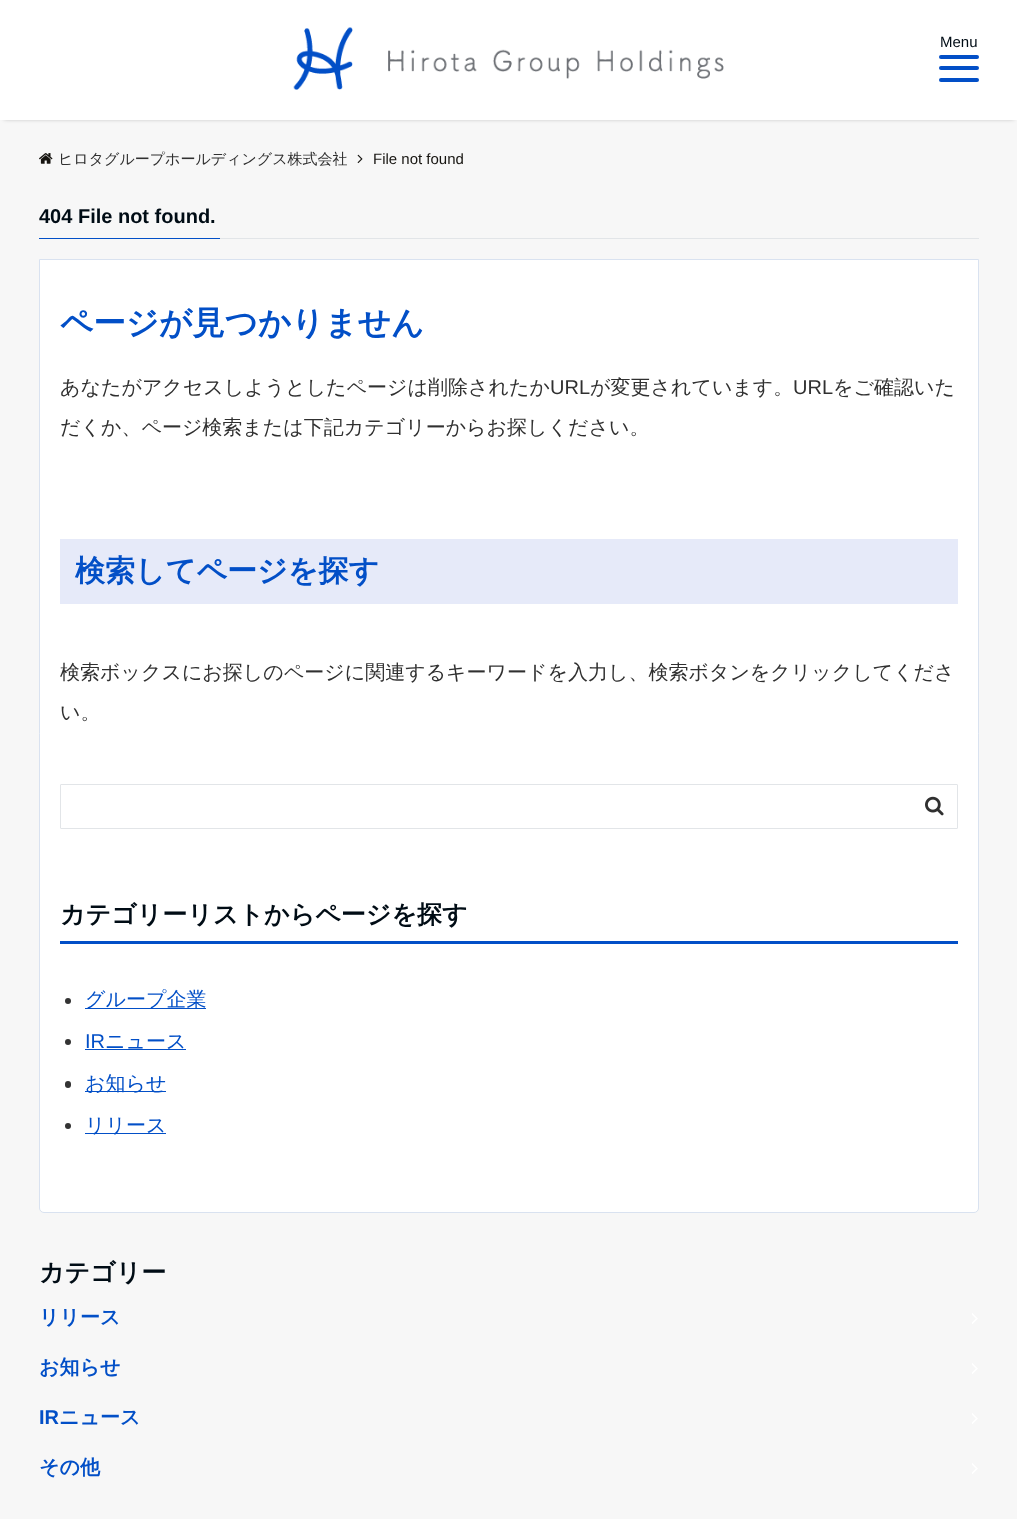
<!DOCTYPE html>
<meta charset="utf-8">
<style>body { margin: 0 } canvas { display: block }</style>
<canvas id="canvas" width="1017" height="1519"></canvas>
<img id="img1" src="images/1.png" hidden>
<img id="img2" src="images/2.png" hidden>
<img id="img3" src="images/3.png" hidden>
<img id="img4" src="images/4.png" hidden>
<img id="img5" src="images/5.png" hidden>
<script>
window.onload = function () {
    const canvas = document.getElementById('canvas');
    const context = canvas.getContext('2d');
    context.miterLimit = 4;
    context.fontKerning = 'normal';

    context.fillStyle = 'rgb(247, 247, 247)';
    context.fillRect(0, 0, 1017, 1519);
    context.fillStyle = 'rgba(0, 0, 0, 0.3)';
    context.filter = 'blur(2px)';
    context.beginPath();
    context.rect(4, 6, 1010, 113);
    context.fill();
    context.filter = 'none';
    context.fillStyle = 'rgb(255, 255, 255)';
    context.fillRect(0, 0, 1017, 120);
    context.drawImage(document.getElementById('img1'), 293, 27, 431, 63);
    context.fillStyle = 'rgb(2, 79, 199)';
    context.beginPath();
    context.roundRect(939, 55, 40, 4, 2);
    context.fill();
    context.beginPath();
    context.roundRect(939, 66, 40, 4, 2);
    context.fill();
    context.beginPath();
    context.roundRect(939, 78, 40, 4, 2);
    context.fill();
    context.drawImage(document.getElementById('img2'), 39, 153, 14, 11);
    context.drawImage(document.getElementById('img3'), 357, 154, 6, 10);
    context.fillStyle = 'rgb(226, 229, 232)';
    context.fillRect(220, 238, 759, 1);
    context.fillStyle = 'rgb(2, 79, 199)';
    context.fillRect(39, 238, 181, 1);
    context.fillStyle = 'rgb(255, 255, 255)';
    context.beginPath();
    context.roundRect(39.5, 259.5, 939, 953, [0, 0, 4.5, 4.5]);
    context.fill();
    context.strokeStyle = 'rgb(217, 226, 240)';
    context.stroke();
    context.fillStyle = 'rgb(230, 234, 249)';
    context.fillRect(60, 539, 898, 65);
    context.beginPath();
    context.roundRect(60.5, 784.5, 897, 44, 0.5);
    context.strokeStyle = 'rgb(226, 229, 232)';
    context.stroke();
    context.drawImage(document.getElementById('img4'), 925, 796, 19, 20);
    context.fillStyle = 'rgb(2, 79, 199)';
    context.fillRect(60, 941, 898, 3);
    context.fillStyle = 'rgb(51, 51, 51)';
    context.beginPath();
    context.arc(68, 1001, 3, 0, 2 * Math.PI);
    context.fill();
    context.fillStyle = 'rgb(2, 79, 199)';
    context.fillRect(85, 1008, 121, 1);
    context.fillStyle = 'rgb(51, 51, 51)';
    context.beginPath();
    context.arc(68, 1042, 3, 0, 2 * Math.PI);
    context.fill();
    context.fillStyle = 'rgb(2, 79, 199)';
    context.fillRect(85, 1049, 101, 1);
    context.fillStyle = 'rgb(51, 51, 51)';
    context.beginPath();
    context.roundRect(65, 1081, 6, 7, 3);
    context.fill();
    context.fillStyle = 'rgb(2, 79, 199)';
    context.fillRect(85, 1091, 81, 1);
    context.fillStyle = 'rgb(51, 51, 51)';
    context.beginPath();
    context.arc(68, 1126, 3, 0, 2 * Math.PI);
    context.fill();
    context.fillStyle = 'rgb(2, 79, 199)';
    context.fillRect(85, 1133, 81, 1);
    context.drawImage(document.getElementById('img5'), 972, 1313, 6, 11);
    context.drawImage(document.getElementById('img5'), 972, 1363, 6, 11);
    context.drawImage(document.getElementById('img5'), 972, 1413, 6, 11);
    context.drawImage(document.getElementById('img5'), 972, 1463, 6, 11);
    context.font = '15px Liberation Sans';
    context.fillStyle = 'rgb(0, 12, 21)';
    context.fillText('Menu', 940, 47);
    context.font = '500 15px WenQuanYi Zen Hei';
    context.fillStyle = 'rgb(48, 48, 48)';
    context.fillText('ヒロタグループホールディングス株式会社', 58, 164);
    context.font = '15px Liberation Sans';
    context.fillStyle = 'rgb(22, 20, 16)';
    context.fillText('File not found', 373, 164);
    context.font = 'bold 20px Liberation Sans';
    context.fillStyle = 'rgb(0, 12, 21)';
    context.fillText('404 File not found.', 39, 223);
    context.font = 'bold 32.5px WenQuanYi Zen Hei';
    context.fillStyle = 'rgb(2, 79, 199)';
    context.fillText('ページが見つかりません', 60, 334);
    context.font = '500 20px WenQuanYi Zen Hei';
    context.fillStyle = 'rgb(48, 48, 48)';
    context.fillText('あなたがアクセスしようとしたページは削除されたか', 60, 394);
    context.font = '20px Liberation Sans';
    context.fillText('URL', 550, 394);
    context.font = '500 20px WenQuanYi Zen Hei';
    context.fillText('が変更されています。', 590, 394);
    context.font = '20px Liberation Sans';
    context.fillText('URL', 793, 394);
    context.font = '500 20px WenQuanYi Zen Hei';
    context.fillText('をご確認いた', 833, 394);
    context.fillText('だくか、ページ検索または下記カテゴリーからお探しください。', 60, 434);
    context.font = 'bold 30px WenQuanYi Zen Hei';
    context.fillStyle = 'rgb(2, 79, 199)';
    context.fillText('検索してページを探す', 75, 581);
    context.font = '500 20px WenQuanYi Zen Hei';
    context.fillStyle = 'rgb(48, 48, 48)';
    context.fillText('検索ボックスにお探しのページに関連するキーワードを入力し、検索ボタンをクリックしてくださ', 60, 679);
    context.fillText('い。', 60, 719);
    context.font = 'bold 25px WenQuanYi Zen Hei';
    context.fillStyle = 'rgb(0, 12, 21)';
    context.fillText('カテゴリーリストからページを探す', 60, 923);
    context.font = '500 20px WenQuanYi Zen Hei';
    context.fillStyle = 'rgb(2, 79, 199)';
    context.fillText('グループ企業', 85, 1006);
    context.font = '20px Liberation Sans';
    context.fillText('IR', 85, 1048);
    context.font = '500 20px WenQuanYi Zen Hei';
    context.fillText('ニュース', 105, 1048);
    context.fillText('お知らせ', 85, 1090);
    context.fillText('リリース', 85, 1132);
    context.font = 'bold 25px WenQuanYi Zen Hei';
    context.fillStyle = 'rgb(0, 12, 21)';
    context.fillText('カテゴリー', 39, 1281);
    context.font = 'bold 20px WenQuanYi Zen Hei';
    context.fillStyle = 'rgb(2, 79, 199)';
    context.fillText('リリース', 39, 1324);
    context.fillText('お知らせ', 39, 1374);
    context.font = 'bold 20px Liberation Sans';
    context.fillText('IR', 39, 1424);
    context.font = 'bold 20px WenQuanYi Zen Hei';
    context.fillText('ニュース', 59, 1424);
    context.fillText('その他', 39, 1474);
};
</script>
